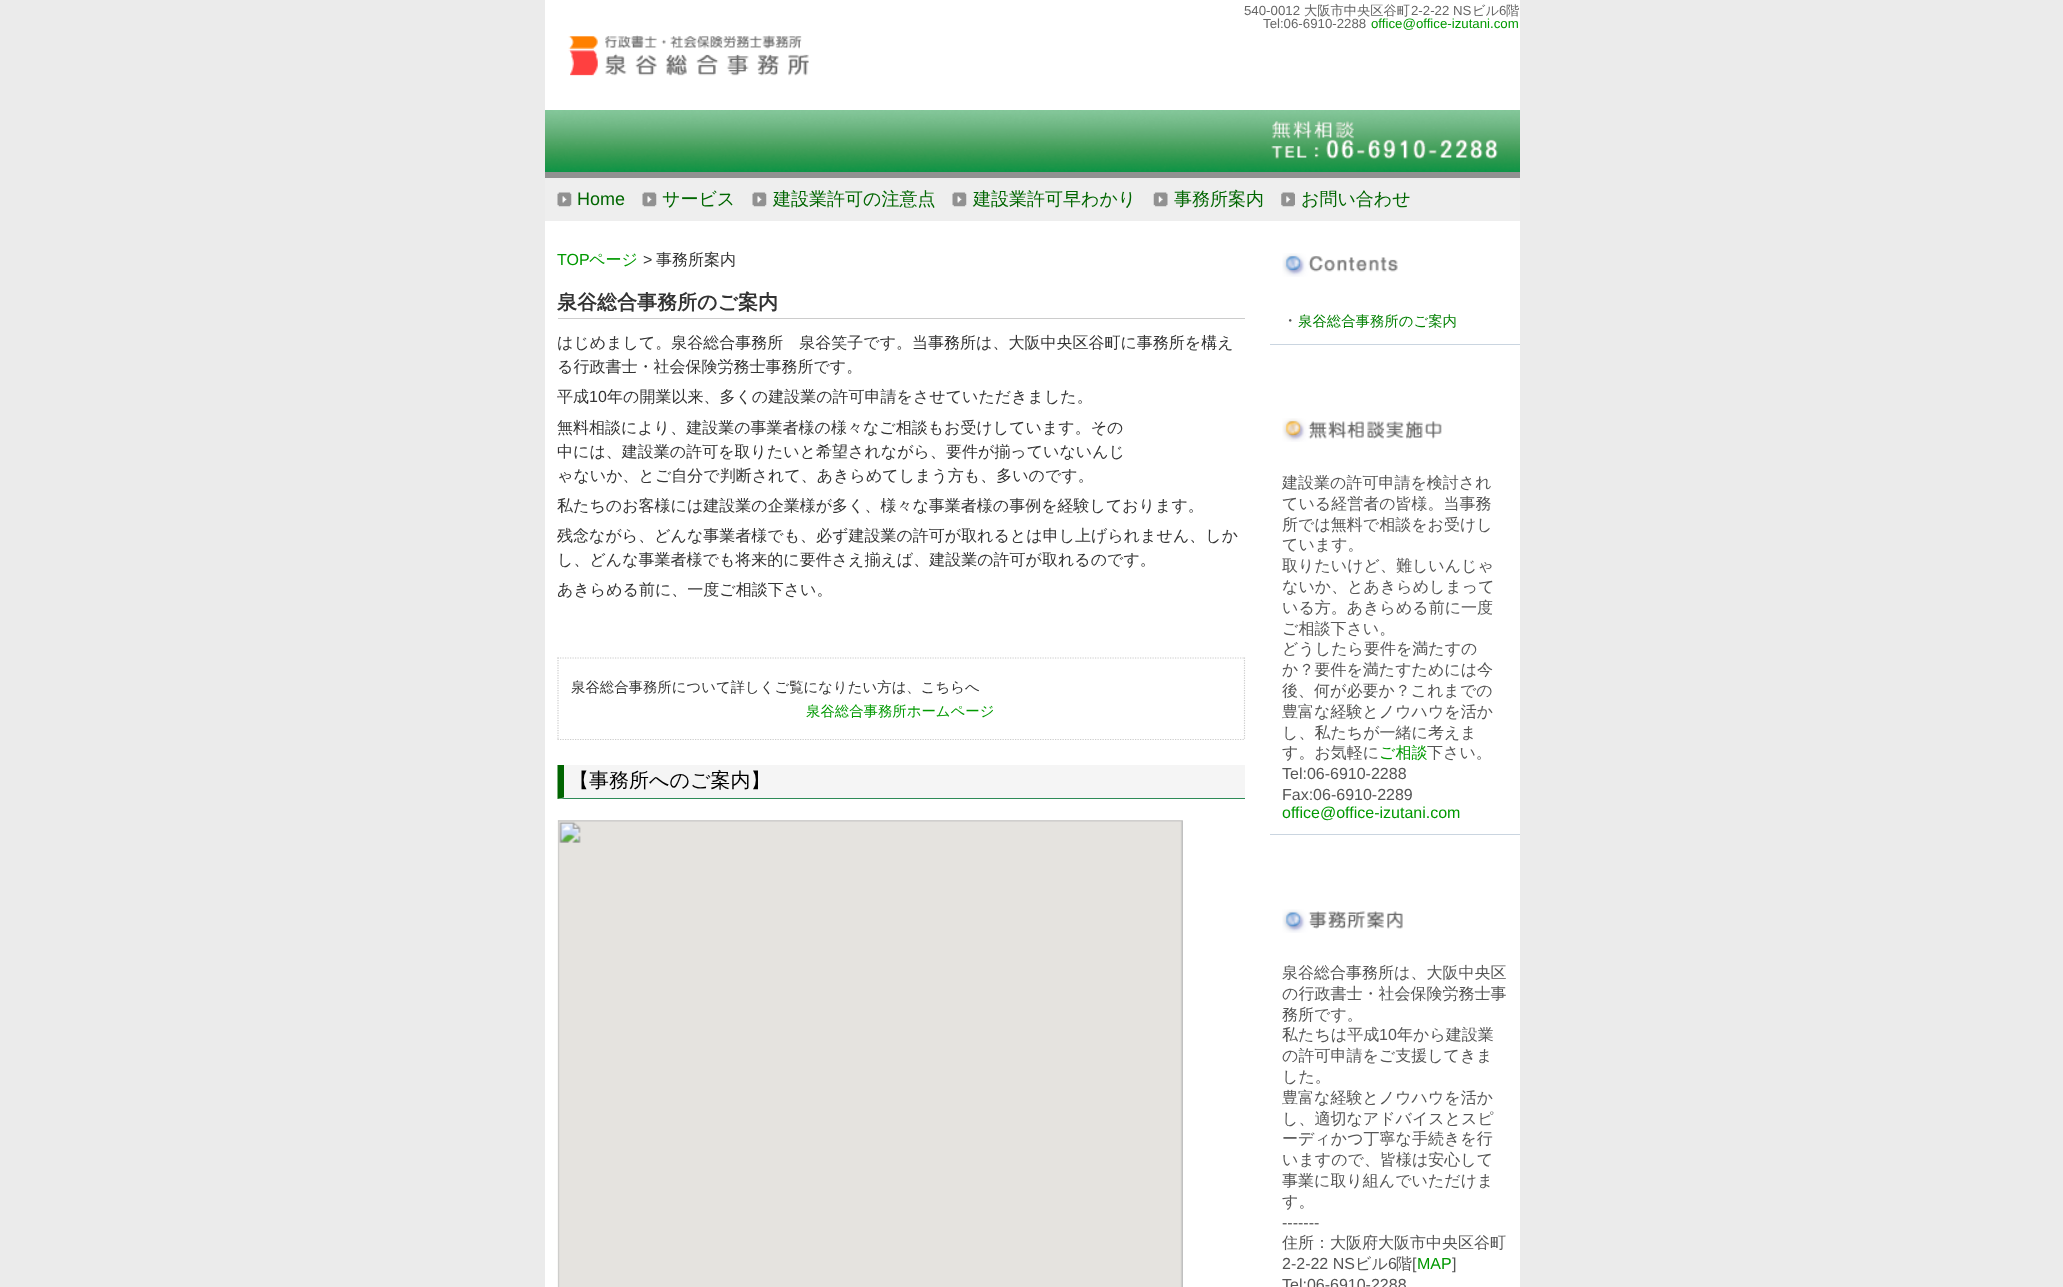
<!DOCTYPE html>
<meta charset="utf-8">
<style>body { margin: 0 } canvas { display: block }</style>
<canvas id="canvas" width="2063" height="1287"></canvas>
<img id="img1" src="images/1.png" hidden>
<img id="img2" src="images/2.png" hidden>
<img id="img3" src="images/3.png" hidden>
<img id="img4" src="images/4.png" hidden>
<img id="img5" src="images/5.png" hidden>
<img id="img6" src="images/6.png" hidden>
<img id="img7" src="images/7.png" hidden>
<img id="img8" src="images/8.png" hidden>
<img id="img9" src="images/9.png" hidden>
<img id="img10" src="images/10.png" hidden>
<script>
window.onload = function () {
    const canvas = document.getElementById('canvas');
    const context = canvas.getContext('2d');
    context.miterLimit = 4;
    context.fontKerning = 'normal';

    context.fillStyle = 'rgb(235, 235, 235)';
    context.fillRect(0, 0, 2063, 1287);
    context.fillStyle = 'rgb(255, 255, 255)';
    context.fillRect(545, 0, 975, 1287);
    context.drawImage(document.getElementById('img1'), 568, 35, 241, 41);
    context.drawImage(document.getElementById('img2'), 545, 110, 975, 62);
    context.fillStyle = 'rgb(238, 238, 238)';
    context.fillRect(545, 178, 975, 43);
    context.fillStyle = 'rgb(145, 145, 145)';
    context.fillRect(545, 172, 975, 6);
    context.drawImage(document.getElementById('img3'), 557, 192, 15, 15);
    context.drawImage(document.getElementById('img4'), 642, 192, 15, 15);
    context.drawImage(document.getElementById('img4'), 752, 192, 15, 15);
    context.drawImage(document.getElementById('img3'), 952, 192, 15, 15);
    context.drawImage(document.getElementById('img5'), 1153, 192, 15, 15);
    context.drawImage(document.getElementById('img6'), 1281, 192, 14, 15);
    context.fillStyle = 'rgb(204, 204, 204)';
    context.fillRect(558, 318, 687, 1);
    context.beginPath();
    context.moveTo(557.5, 658);
    context.lineTo(1245, 658);
    context.strokeStyle = 'rgb(204, 204, 204)';
    context.lineWidth = 1.2;
    context.setLineDash([1.25, 1.25]);
    context.stroke();
    context.beginPath();
    context.moveTo(1244.5, 657.5);
    context.lineTo(1244.5, 740);
    context.stroke();
    context.beginPath();
    context.moveTo(557.5, 739.5);
    context.lineTo(1245, 739.5);
    context.stroke();
    context.beginPath();
    context.moveTo(558, 657.5);
    context.lineTo(558, 740);
    context.stroke();
    context.fillStyle = 'rgb(245, 245, 245)';
    context.fillRect(558, 765, 687, 34);
    context.fillStyle = 'rgb(46, 139, 87)';
    context.beginPath();
    context.moveTo(1245, 799);
    context.lineTo(558, 799);
    context.lineTo(564, 798);
    context.lineTo(1245, 798);
    context.closePath();
    context.fill();
    context.fillStyle = 'rgb(0, 100, 0)';
    context.beginPath();
    context.moveTo(557.5, 799);
    context.lineTo(557.5, 765);
    context.lineTo(564, 765);
    context.lineTo(564, 797.5);
    context.closePath();
    context.fill();
    context.drawImage(document.getElementById('img7'), 557, 820, 626, 467);
    context.drawImage(document.getElementById('img8'), 1282, 253, 116, 24);
    context.fillStyle = 'rgb(202, 213, 224)';
    context.fillRect(1270, 344, 250, 1);
    context.drawImage(document.getElementById('img9'), 1282, 418, 160, 24);
    context.fillRect(1270, 834, 250, 1);
    context.drawImage(document.getElementById('img10'), 1282, 909, 121, 24);
    context.font = '13.25px Liberation Sans';
    context.fillStyle = 'rgb(102, 102, 102)';
    context.fillText('540-0012', 1244, 15);
    context.font = '500 13.25px WenQuanYi Zen Hei';
    context.fillText('大阪市中央区谷町', 1304, 15);
    context.font = '13.25px Liberation Sans';
    context.fillText('2-2-22 NS', 1411, 15);
    context.font = '500 13.25px WenQuanYi Zen Hei';
    context.fillText('ビル', 1472, 15);
    context.font = '13.25px Liberation Sans';
    context.fillText('6', 1499, 15);
    context.font = '500 13.25px WenQuanYi Zen Hei';
    context.fillText('階', 1506, 15);
    context.font = '13.25px Liberation Sans';
    context.fillText('Tel:06-6910-2288', 1263, 28);
    context.fillStyle = 'rgb(0, 153, 0)';
    context.fillText('office@office-izutani.com', 1371, 28);
    context.font = '18px Liberation Sans';
    context.fillStyle = 'rgb(0, 102, 0)';
    context.fillText('Home', 577, 205);
    context.font = '500 18px WenQuanYi Zen Hei';
    context.fillText('サービス', 662, 205);
    context.fillText('建設業許可の注意点', 773, 205);
    context.fillText('建設業許可早わかり', 973, 205);
    context.fillText('事務所案内', 1174, 205);
    context.fillText('お問い合わせ', 1301, 205);
    context.font = '16px Liberation Sans';
    context.fillStyle = 'rgb(0, 153, 0)';
    context.fillText('TOP', 557, 265);
    context.font = '500 16px WenQuanYi Zen Hei';
    context.fillText('ページ', 589, 265);
    context.font = '16px Liberation Sans';
    context.fillStyle = 'rgb(51, 51, 51)';
    context.fillText('>', 643, 265);
    context.font = '500 16px WenQuanYi Zen Hei';
    context.fillText('事務所案内', 656, 265);
    context.font = 'bold 20px WenQuanYi Zen Hei';
    context.fillText('泉谷総合事務所のご案内', 557, 309);
    context.font = '500 16px WenQuanYi Zen Hei';
    context.fillText('はじめまして。泉谷総合事務所　泉谷笑子です。当事務所は、大阪中央区谷町に事務所を構え', 557, 348);
    context.fillText('る行政書士・社会保険労務士事務所です。', 557, 372);
    context.fillText('平成', 557, 402);
    context.font = '16px Liberation Sans';
    context.fillText('10', 589, 402);
    context.font = '500 16px WenQuanYi Zen Hei';
    context.fillText('年の開業以来、多くの建設業の許可申請をさせていただきました。', 607, 402);
    context.fillText('無料相談により、建設業の事業者様の様々なご相談もお受けしています。その', 557, 433);
    context.fillText('中には、建設業の許可を取りたいと希望されながら、要件が揃っていないんじ', 557, 457);
    context.fillText('ゃないか、とご自分で判断されて、あきらめてしまう方も、多いのです。', 557, 481);
    context.fillText('私たちのお客様には建設業の企業様が多く、様々な事業者様の事例を経験しております。', 557, 511);
    context.fillText('残念ながら、どんな事業者様でも、必ず建設業の許可が取れるとは申し上げられません、しか', 557, 541);
    context.fillText('し、どんな事業者様でも将来的に要件さえ揃えば、建設業の許可が取れるのです。', 557, 565);
    context.fillText('あきらめる前に、一度ご相談下さい。', 557, 595);
    context.font = '500 14.4px WenQuanYi Zen Hei';
    context.fillText('泉谷総合事務所について詳しくご覧になりたい方は、こちらへ', 571, 692);
    context.fillStyle = 'rgb(0, 153, 0)';
    context.fillText('泉谷総合事務所ホームページ', 806, 716);
    context.font = '500 20px WenQuanYi Zen Hei';
    context.fillStyle = 'rgb(0, 0, 0)';
    context.fillText('【事務所へのご案内】', 569, 787);
    context.font = '500 16px WenQuanYi Zen Hei';
    context.fillStyle = 'rgb(85, 85, 85)';
    context.fillText('・', 1282, 326);
    context.font = '500 14.4px WenQuanYi Zen Hei';
    context.fillStyle = 'rgb(0, 128, 0)';
    context.fillText('泉谷総合事務所のご案内', 1298, 326);
    context.font = '500 16px WenQuanYi Zen Hei';
    context.fillStyle = 'rgb(85, 85, 85)';
    context.fillText('建設業の許可申請を検討され', 1282, 488);
    context.fillText('ている経営者の皆様。当事務', 1282, 509);
    context.fillText('所では無料で相談をお受けし', 1282, 530);
    context.fillText('ています。', 1282, 550);
    context.fillText('取りたいけど、難しいんじゃ', 1282, 571);
    context.fillText('ないか、とあきらめしまって', 1282, 592);
    context.fillText('いる方。あきらめる前に一度', 1282, 613);
    context.fillText('ご相談下さい。', 1282, 634);
    context.fillText('どうしたら要件を満たすの', 1282, 654);
    context.fillText('か？要件を満たすためには今', 1282, 675);
    context.fillText('後、何が必要か？これまでの', 1282, 696);
    context.fillText('豊富な経験とノウハウを活か', 1282, 717);
    context.fillText('し、私たちが一緒に考えま', 1282, 738);
    context.fillText('す。お気軽に', 1282, 758);
    context.fillStyle = 'rgb(0, 153, 0)';
    context.fillText('ご相談', 1379, 758);
    context.fillStyle = 'rgb(85, 85, 85)';
    context.fillText('下さい。', 1427, 758);
    context.font = '16px Liberation Sans';
    context.fillText('Tel:06-6910-2288', 1282, 779);
    context.fillText('Fax:06-6910-2289', 1282, 800);
    context.fillStyle = 'rgb(0, 153, 0)';
    context.fillText('office@office-izutani.com', 1282, 818);
    context.font = '500 16px WenQuanYi Zen Hei';
    context.fillStyle = 'rgb(85, 85, 85)';
    context.fillText('泉谷総合事務所は、大阪中央区', 1282, 978);
    context.fillText('の行政書士・社会保険労務士事', 1282, 999);
    context.fillText('務所です。', 1282, 1020);
    context.fillText('私たちは平成', 1282, 1040);
    context.font = '16px Liberation Sans';
    context.fillText('10', 1379, 1040);
    context.font = '500 16px WenQuanYi Zen Hei';
    context.fillText('年から建設業', 1397, 1040);
    context.fillText('の許可申請をご支援してきま', 1282, 1061);
    context.fillText('した。', 1282, 1082);
    context.fillText('豊富な経験とノウハウを活か', 1282, 1103);
    context.fillText('し、適切なアドバイスとスピ', 1282, 1124);
    context.fillText('ーディかつ丁寧な手続きを行', 1282, 1144);
    context.fillText('いますので、皆様は安心して', 1282, 1165);
    context.fillText('事業に取り組んでいただけま', 1282, 1186);
    context.fillText('す。', 1282, 1207);
    context.font = '16px Liberation Sans';
    context.fillText('-------', 1282, 1228);
    context.font = '500 16px WenQuanYi Zen Hei';
    context.fillText('住所：大阪府大阪市中央区谷町', 1282, 1248);
    context.font = '16px Liberation Sans';
    context.fillText('2-2-22 NS', 1282, 1269);
    context.font = '500 16px WenQuanYi Zen Hei';
    context.fillText('ビル', 1355, 1269);
    context.font = '16px Liberation Sans';
    context.fillText('6', 1388, 1269);
    context.font = '500 16px WenQuanYi Zen Hei';
    context.fillText('階', 1396, 1269);
    context.font = '16px Liberation Sans';
    context.fillText('[', 1412, 1269);
    context.fillStyle = 'rgb(0, 153, 0)';
    context.fillText('MAP', 1417, 1269);
    context.fillStyle = 'rgb(85, 85, 85)';
    context.fillText(']', 1452, 1269);
    context.fillText('Tel:06-6910-2288', 1282, 1290);
};
</script>
